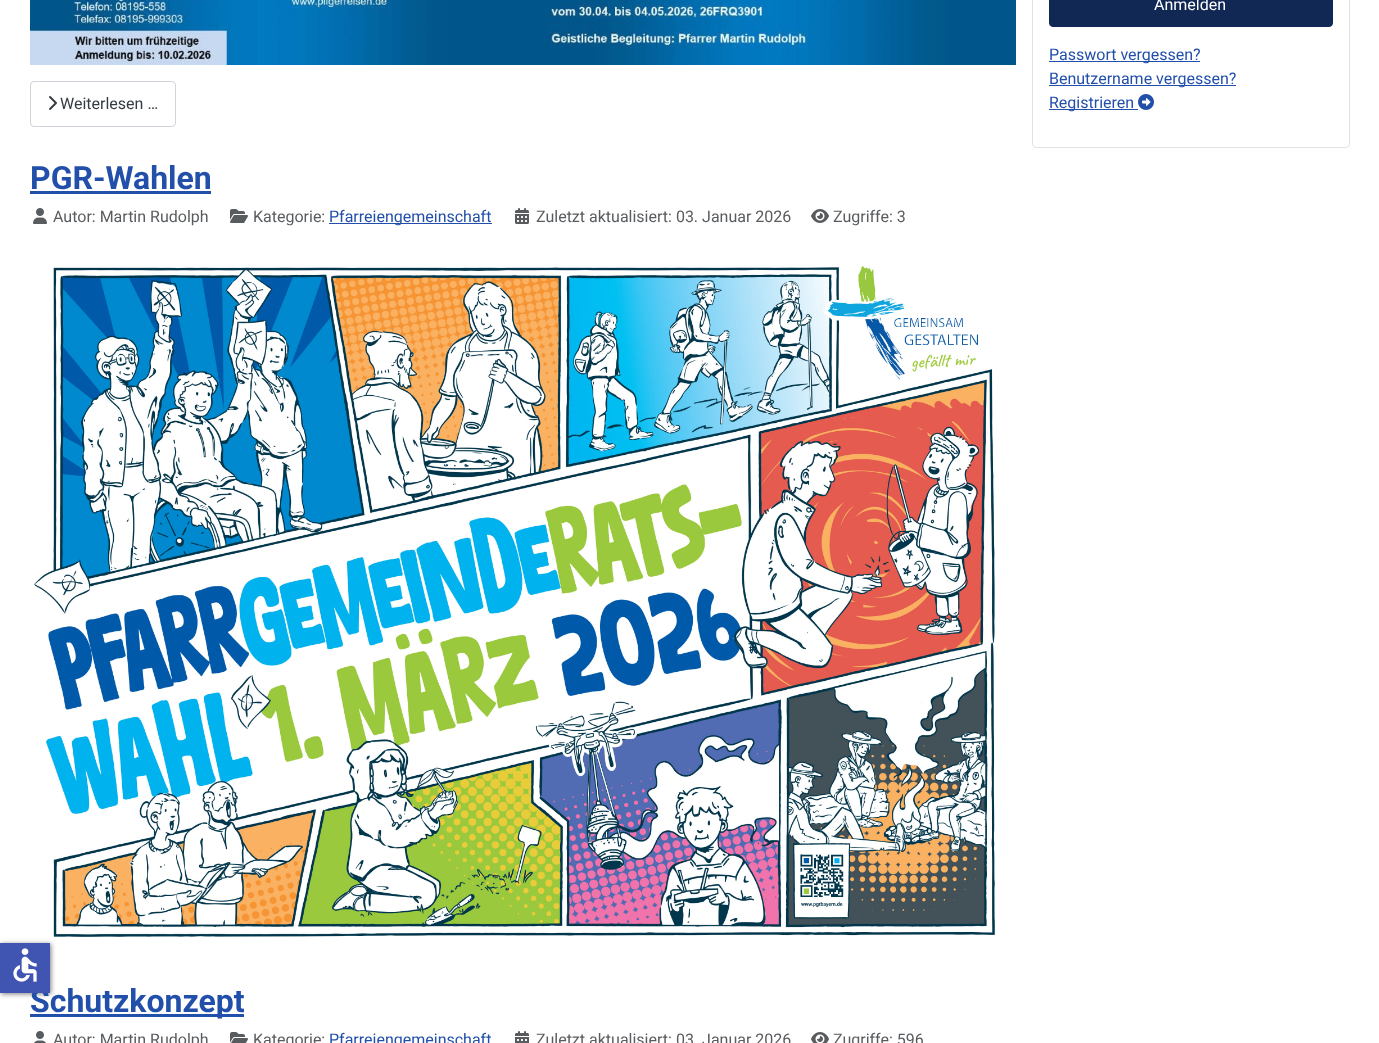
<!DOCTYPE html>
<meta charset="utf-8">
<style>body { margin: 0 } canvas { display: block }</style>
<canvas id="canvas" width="1379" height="1043"></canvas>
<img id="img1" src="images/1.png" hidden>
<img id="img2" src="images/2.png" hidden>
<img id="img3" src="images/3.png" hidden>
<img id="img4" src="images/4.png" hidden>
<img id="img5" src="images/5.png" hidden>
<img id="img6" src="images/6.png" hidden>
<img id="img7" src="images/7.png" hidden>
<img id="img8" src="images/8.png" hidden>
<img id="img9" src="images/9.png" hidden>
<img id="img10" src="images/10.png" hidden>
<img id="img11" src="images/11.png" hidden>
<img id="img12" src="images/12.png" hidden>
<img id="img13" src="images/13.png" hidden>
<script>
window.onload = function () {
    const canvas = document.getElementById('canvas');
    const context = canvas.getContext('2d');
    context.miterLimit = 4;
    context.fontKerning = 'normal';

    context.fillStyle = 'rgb(255, 255, 255)';
    context.fillRect(0, 0, 1379, 1043);
    context.beginPath();
    context.roundRect(1032.5, -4.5, 317, 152, 3.5);
    context.strokeStyle = 'rgb(223, 227, 231)';
    context.stroke();
    context.fillStyle = 'rgb(17, 40, 85)';
    context.beginPath();
    context.roundRect(1049.5, -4.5, 283, 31, 3.5);
    context.fill();
    context.strokeStyle = 'rgb(17, 40, 85)';
    context.stroke();
    context.fillStyle = 'rgb(34, 79, 170)';
    context.fillRect(1049, 61, 151, 1);
    context.fillRect(1049, 85, 187, 1);
    context.fillRect(1049, 109, 89, 1);
    context.drawImage(document.getElementById('img1'), 1138, 94, 16, 16);
    context.drawImage(document.getElementById('img2'), 30, 0, 986, 65);
    context.beginPath();
    context.roundRect(30.5, 81.5, 145, 45, 3.5);
    context.strokeStyle = 'rgb(206, 212, 218)';
    context.stroke();
    context.drawImage(document.getElementById('img3'), 49, 96, 8, 14);
    context.fillRect(30, 191, 181, 3);
    context.drawImage(document.getElementById('img4'), 33, 208, 14, 16);
    context.drawImage(document.getElementById('img5'), 230, 209, 18, 14);
    context.fillRect(329, 223, 163, 1);
    context.drawImage(document.getElementById('img6'), 515, 208, 14, 16);
    context.drawImage(document.getElementById('img7'), 811, 209, 18, 14);
    context.drawImage(document.getElementById('img8'), 34, 265, 961, 672);
    context.fillRect(30, 1014, 214, 3);
    context.drawImage(document.getElementById('img9'), 34, 1031, 12, 12);
    context.drawImage(document.getElementById('img10'), 230, 1032, 18, 11);
    context.drawImage(document.getElementById('img11'), 515, 1031, 14, 12);
    context.drawImage(document.getElementById('img12'), 811, 1032, 18, 11);
    context.fillStyle = 'rgba(0, 0, 0, 0.5)';
    context.filter = 'blur(2.5px)';
    context.beginPath();
    context.rect(1, 944, 50, 50);
    context.fill();
    context.filter = 'none';
    context.font = '16px Roboto';
    context.fillStyle = 'rgb(255, 255, 255)';
    context.fillText('Anmelden', 1154, 10);
    context.fillStyle = 'rgb(34, 79, 170)';
    context.fillText('Passwort vergessen?', 1049, 60);
    context.fillText('Benutzername vergessen?', 1049, 84);
    context.fillText('Registrieren', 1049, 108);
    context.fillStyle = 'rgb(53, 59, 65)';
    context.fillText('Weiterlesen …', 60, 109);
    context.font = 'bold 32px Roboto';
    context.fillStyle = 'rgb(34, 79, 170)';
    context.fillText('PGR-Wahlen', 30, 189);
    context.font = '16px Roboto';
    context.fillStyle = 'rgb(89, 92, 95)';
    context.fillText('Autor: Martin Rudolph', 53, 222);
    context.fillText('Kategorie:', 253, 222);
    context.fillStyle = 'rgb(34, 79, 170)';
    context.fillText('Pfarreiengemeinschaft', 329, 222);
    context.fillStyle = 'rgb(89, 92, 95)';
    context.fillText('Zuletzt aktualisiert: 03. Januar 2026', 536, 222);
    context.fillText('Zugriffe: 3', 833, 222);
    context.font = 'bold 32px Roboto';
    context.fillStyle = 'rgb(34, 79, 170)';
    context.fillText('Schutzkonzept', 30, 1012);
    context.font = '16px Roboto';
    context.fillStyle = 'rgb(89, 92, 95)';
    context.fillText('Autor: Martin Rudolph', 53, 1045);
    context.fillText('Kategorie:', 253, 1045);
    context.fillStyle = 'rgb(34, 79, 170)';
    context.fillText('Pfarreiengemeinschaft', 329, 1045);
    context.fillStyle = 'rgb(89, 92, 95)';
    context.fillText('Zuletzt aktualisiert: 03. Januar 2026', 536, 1045);
    context.fillText('Zugriffe: 596', 833, 1045);
    context.fillStyle = 'rgb(64, 84, 178)';
    context.fillRect(0, 943, 50, 50);
    context.drawImage(document.getElementById('img13'), 13, 948, 24, 34);
};
</script>
